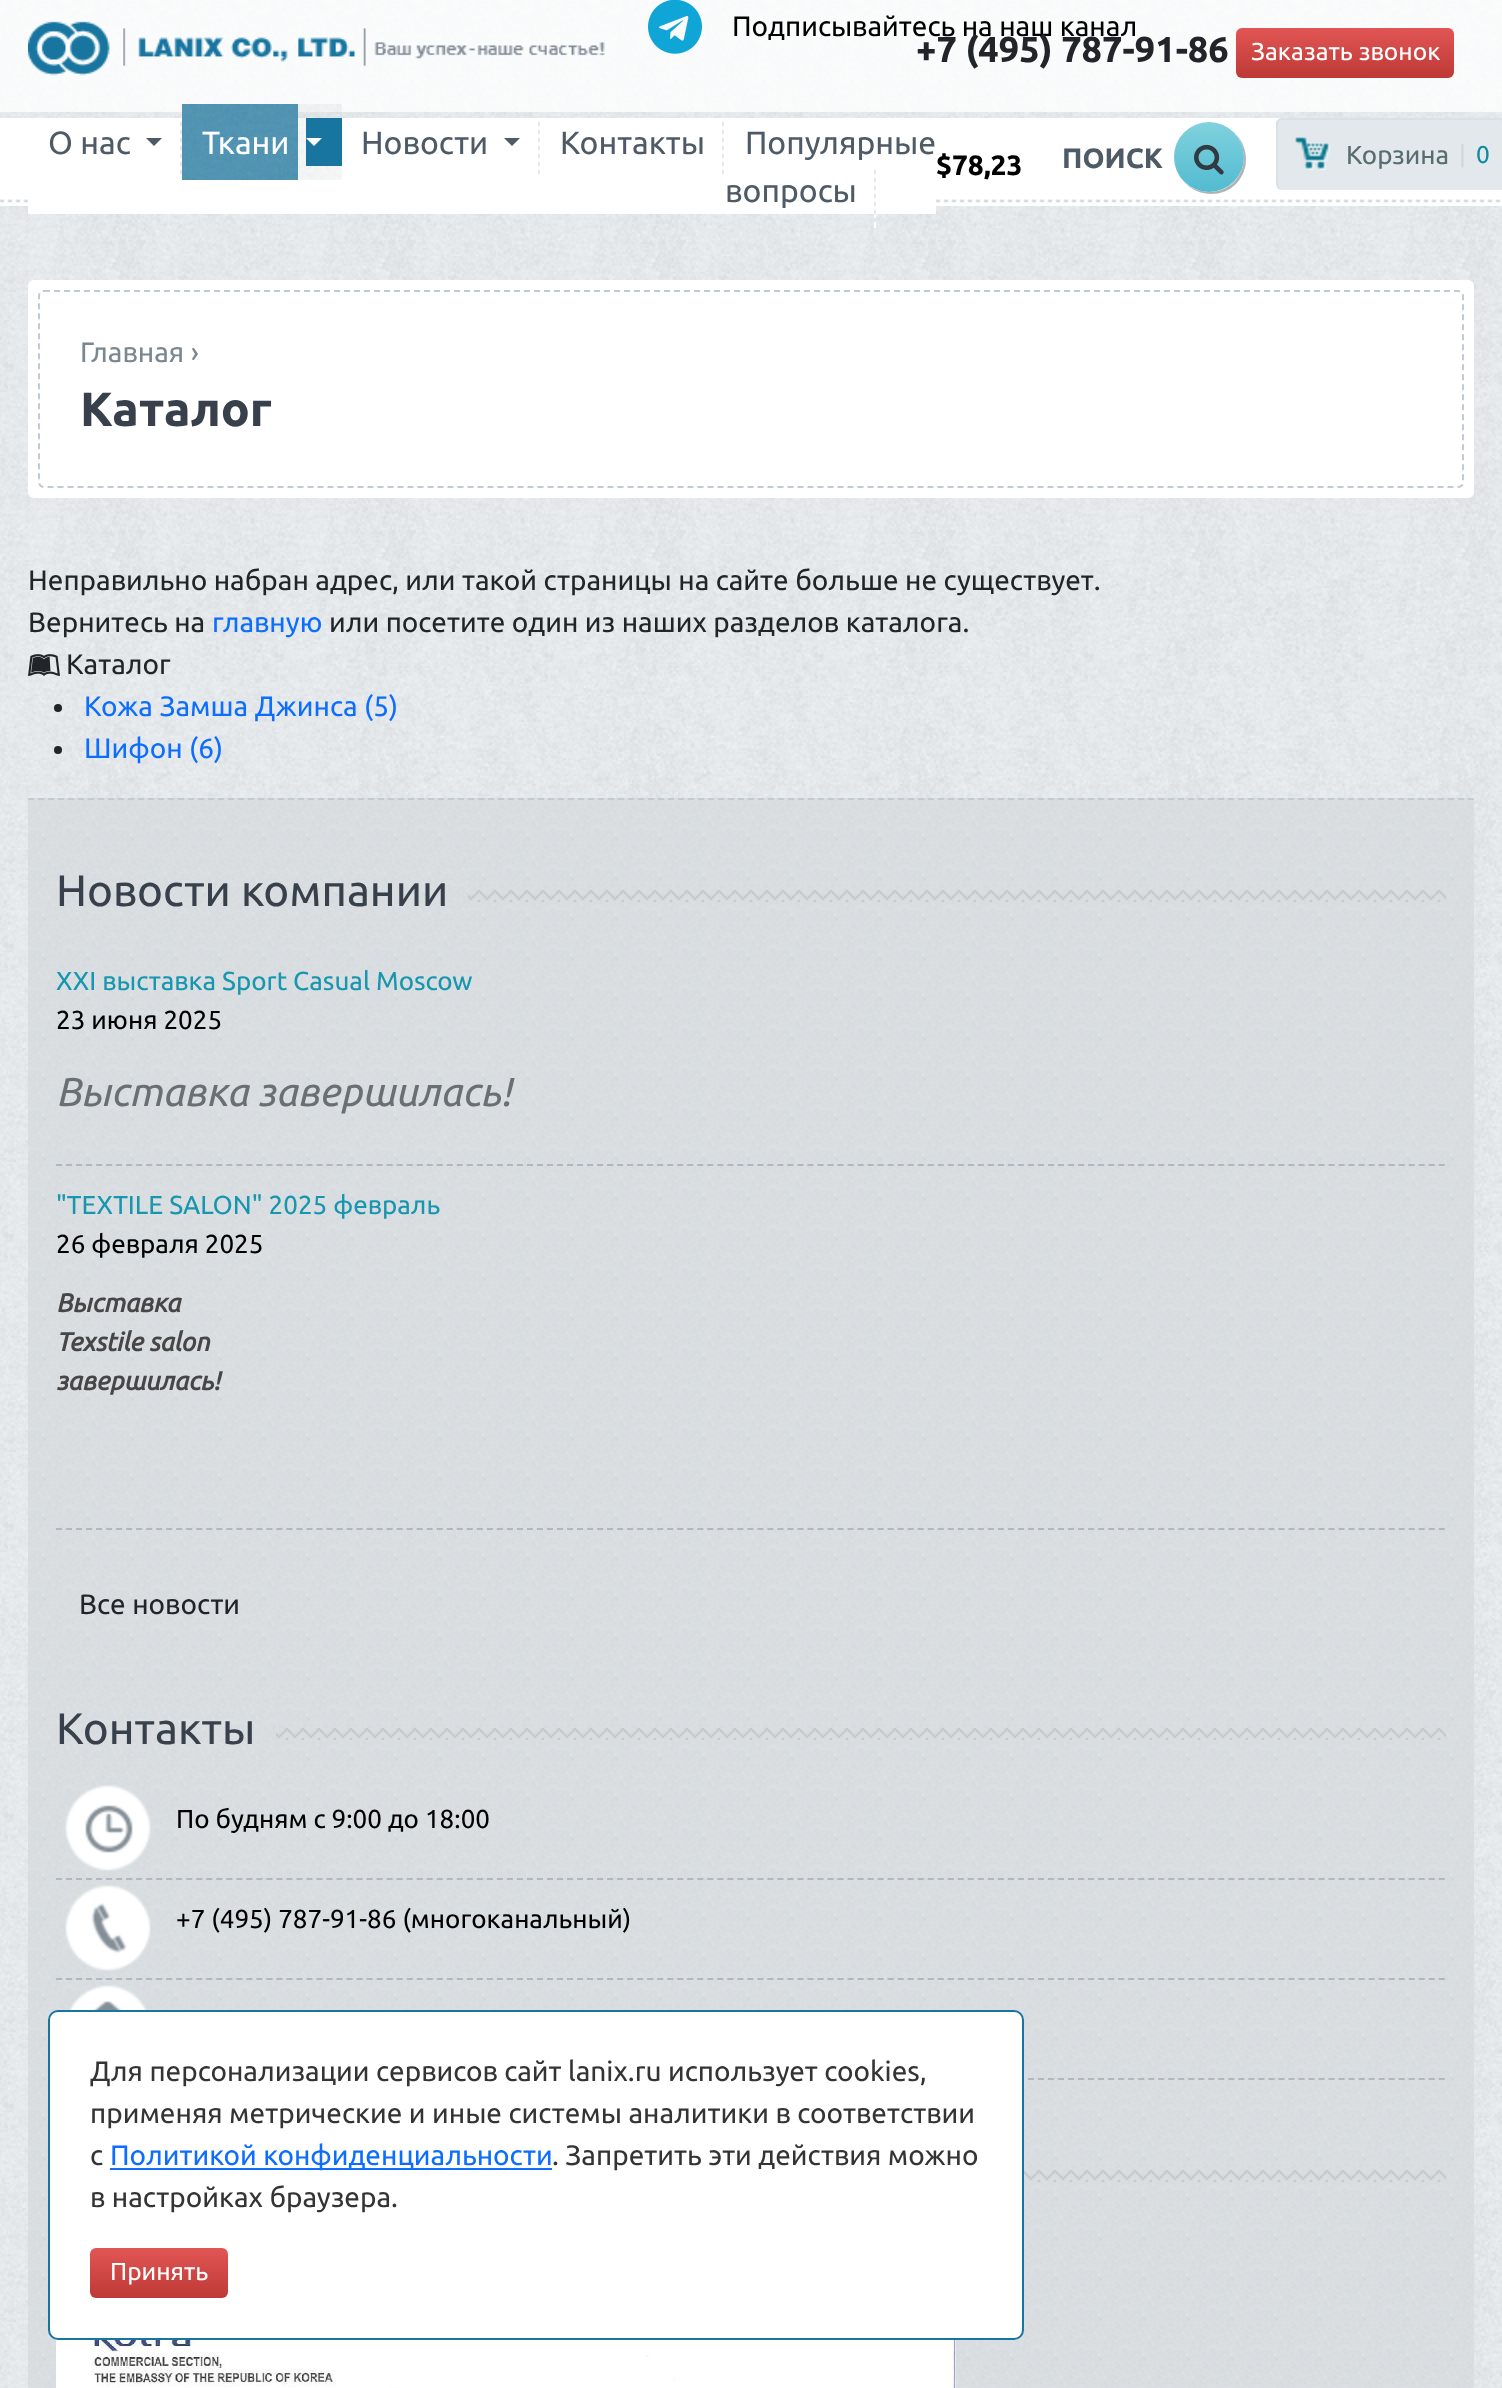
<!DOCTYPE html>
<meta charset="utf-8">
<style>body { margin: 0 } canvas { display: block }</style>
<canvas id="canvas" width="1502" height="2388"></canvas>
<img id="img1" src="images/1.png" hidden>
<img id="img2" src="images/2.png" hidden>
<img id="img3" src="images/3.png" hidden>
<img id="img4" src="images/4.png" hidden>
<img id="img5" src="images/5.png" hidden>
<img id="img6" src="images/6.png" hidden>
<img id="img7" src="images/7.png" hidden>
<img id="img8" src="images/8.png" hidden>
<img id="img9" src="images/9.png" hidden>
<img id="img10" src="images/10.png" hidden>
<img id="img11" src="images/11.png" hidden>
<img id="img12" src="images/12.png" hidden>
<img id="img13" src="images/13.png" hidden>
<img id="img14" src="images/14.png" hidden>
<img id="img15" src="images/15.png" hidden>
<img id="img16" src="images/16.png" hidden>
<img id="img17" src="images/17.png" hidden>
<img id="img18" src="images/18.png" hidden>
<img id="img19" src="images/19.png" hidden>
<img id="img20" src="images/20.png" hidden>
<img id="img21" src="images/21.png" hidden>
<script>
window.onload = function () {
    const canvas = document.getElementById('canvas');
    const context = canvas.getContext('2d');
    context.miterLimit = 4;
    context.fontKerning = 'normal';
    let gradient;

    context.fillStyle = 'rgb(255, 255, 255)';
    context.fillRect(0, 0, 1502, 2388);
    context.drawImage(document.getElementById('img1'), 0, 112, 1502, 2276);
    context.drawImage(document.getElementById('img2'), 0, 0, 1502, 112);
    context.drawImage(document.getElementById('img3'), 28, 21, 577, 55);
    context.drawImage(document.getElementById('img4'), 648, 0, 54, 54);
    gradient = context.createLinearGradient(1345, 28, 1345, 78);
    gradient.addColorStop(0, 'rgb(225, 86, 85)');
    gradient.addColorStop(1, 'rgb(190, 57, 53)');
    context.fillStyle = gradient;
    context.beginPath();
    context.roundRect(1236, 28, 218, 50, 6);
    context.fill();
    context.drawImage(document.getElementById('img5'), 0, 118, 1502, 88);
    context.fillStyle = 'rgb(255, 255, 255)';
    context.fillRect(28, 199, 908, 15);
    context.drawImage(document.getElementById('img6'), 180, 122, 2, 53);
    context.fillStyle = 'rgb(78, 90, 102)';
    context.beginPath();
    context.moveTo(146, 138);
    context.lineTo(162, 138);
    context.lineTo(154, 146);
    context.closePath();
    context.fill();
    context.fillStyle = 'rgb(23, 117, 160)';
    context.fillRect(182, 104, 116, 76);
    context.drawImage(document.getElementById('img7'), 182, 104, 160, 76);
    context.fillRect(306, 118, 36, 48);
    context.fillStyle = 'rgb(255, 255, 255)';
    context.beginPath();
    context.moveTo(306, 138);
    context.lineTo(322, 138);
    context.lineTo(314, 146);
    context.closePath();
    context.fill();
    context.drawImage(document.getElementById('img6'), 538, 122, 2, 53);
    context.fillStyle = 'rgb(78, 90, 102)';
    context.beginPath();
    context.moveTo(504, 138);
    context.lineTo(520, 138);
    context.lineTo(512, 146);
    context.closePath();
    context.fill();
    context.drawImage(document.getElementById('img6'), 722, 122, 2, 53);
    context.drawImage(document.getElementById('img8'), 874, 170, 2, 58);
    context.fillStyle = 'rgb(179, 179, 179)';
    context.beginPath();
    context.moveTo(1185, 183);
    context.bezierCurveTo(1199, 197, 1222, 198, 1236, 184);
    context.bezierCurveTo(1250, 170, 1249, 147, 1235, 133);
    context.bezierCurveTo(1247, 147, 1247, 169, 1234, 182);
    context.bezierCurveTo(1221, 195, 1199, 195, 1185, 183);
    context.closePath();
    context.fill();
    gradient = context.createLinearGradient(1209, 122, 1209, 192);
    gradient.addColorStop(0, 'rgb(128, 210, 221)');
    gradient.addColorStop(1, 'rgb(82, 187, 208)');
    context.fillStyle = gradient;
    context.beginPath();
    context.arc(1209, 157, 35, 0, 2 * Math.PI);
    context.fill();
    context.drawImage(document.getElementById('img9'), 1194, 144, 30, 31);
    context.fillStyle = 'rgb(226, 232, 236)';
    context.beginPath();
    context.roundRect(1276, 118, 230, 72, 6);
    context.fill();
    context.fillStyle = 'rgb(219, 224, 229)';
    context.beginPath();
    context.moveTo(1282, 118);
    context.lineTo(1500, 118);
    context.bezierCurveTo(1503, 118, 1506, 121, 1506, 124);
    context.lineTo(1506, 184);
    context.bezierCurveTo(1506, 187, 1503, 190, 1500, 190);
    context.lineTo(1282, 190);
    context.bezierCurveTo(1279, 190, 1276, 187, 1276, 184);
    context.lineTo(1276, 124);
    context.bezierCurveTo(1276, 121, 1279, 118, 1282, 118);
    context.closePath();
    context.moveTo(1282, 120);
    context.lineTo(1500, 120);
    context.bezierCurveTo(1502, 120, 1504, 122, 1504, 124);
    context.lineTo(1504, 184);
    context.bezierCurveTo(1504, 187, 1502, 190, 1500, 190);
    context.lineTo(1282, 190);
    context.bezierCurveTo(1280, 190, 1278, 187, 1278, 184);
    context.lineTo(1278, 124);
    context.bezierCurveTo(1278, 122, 1280, 120, 1282, 120);
    context.closePath();
    context.fill('evenodd');
    context.drawImage(document.getElementById('img10'), 1295, 137, 36, 34);
    context.fillStyle = 'rgb(255, 255, 255)';
    context.beginPath();
    context.roundRect(28, 280, 1446, 218, 6);
    context.fill();
    context.beginPath();
    context.moveTo(44, 291);
    context.lineTo(1458, 291);
    context.bezierCurveTo(1461, 291, 1463, 293, 1463, 296);
    context.lineTo(1463, 482);
    context.bezierCurveTo(1463, 485, 1461, 487, 1458, 487);
    context.lineTo(44, 487);
    context.bezierCurveTo(41, 487, 39, 485, 39, 482);
    context.lineTo(39, 296);
    context.bezierCurveTo(39, 293, 41, 291, 44, 291);
    context.closePath();
    context.strokeStyle = 'rgb(194, 203, 211)';
    context.lineWidth = 2;
    context.setLineDash([6, 4]);
    context.stroke();
    context.drawImage(document.getElementById('img11'), 28, 654, 32, 22);
    context.fillStyle = 'rgb(33, 37, 41)';
    context.beginPath();
    context.arc(58, 708, 4, 0, 2 * Math.PI);
    context.fill();
    context.beginPath();
    context.arc(58, 750, 4, 0, 2 * Math.PI);
    context.fill();
    context.drawImage(document.getElementById('img12'), 28, 798, 1446, 1590);
    context.beginPath();
    context.moveTo(28, 799);
    context.lineTo(1474, 799);
    context.stroke();
    context.drawImage(document.getElementById('img13'), 468, 890, 978, 12);
    context.drawImage(document.getElementById('img14'), 56, 857, 412, 63);
    context.beginPath();
    context.moveTo(56, 1165);
    context.lineTo(1446, 1165);
    context.strokeStyle = 'rgb(175, 183, 191)';
    context.setLineDash([6, 4.02]);
    context.stroke();
    context.beginPath();
    context.moveTo(56, 1529);
    context.lineTo(1446, 1529);
    context.stroke();
    context.drawImage(document.getElementById('img15'), 276, 1728, 1170, 12);
    context.drawImage(document.getElementById('img16'), 56, 1697, 220, 63);
    context.drawImage(document.getElementById('img17'), 65, 1785, 86, 86);
    context.beginPath();
    context.moveTo(56, 1879);
    context.lineTo(1446, 1879);
    context.stroke();
    context.drawImage(document.getElementById('img18'), 65, 1885, 86, 86);
    context.beginPath();
    context.moveTo(56, 1979);
    context.lineTo(1446, 1979);
    context.stroke();
    context.drawImage(document.getElementById('img19'), 68, 1985, 82, 25);
    context.beginPath();
    context.moveTo(56, 2079);
    context.lineTo(1446, 2079);
    context.stroke();
    context.drawImage(document.getElementById('img20'), 1024, 2170, 422, 12);
    context.drawImage(document.getElementById('img21'), 56, 2339, 900, 49);
    context.fillStyle = 'rgb(255, 255, 255)';
    context.beginPath();
    context.roundRect(49, 2011, 974, 328, 9);
    context.fill();
    context.strokeStyle = 'rgb(23, 117, 160)';
    context.setLineDash([]);
    context.stroke();
    context.fillStyle = 'rgb(13, 110, 253)';
    context.fillRect(110, 2168, 442, 2);
    gradient = context.createLinearGradient(159, 2248, 159, 2298);
    gradient.addColorStop(0, 'rgb(225, 86, 85)');
    gradient.addColorStop(1, 'rgb(190, 57, 53)');
    context.fillStyle = gradient;
    context.beginPath();
    context.roundRect(90, 2248, 138, 50, 6);
    context.fill();
    context.font = '28px Ubuntu';
    context.fillStyle = 'rgb(0, 0, 0)';
    context.fillText('Подписывайтесь на наш канал', 732, 36);
    context.font = 'bold 36px Ubuntu';
    context.fillStyle = 'rgb(33, 37, 41)';
    context.fillText('+7 (495) 787-91-86', 916, 62);
    context.font = '24.5px Ubuntu';
    context.fillStyle = 'rgb(255, 255, 255)';
    context.fillText('Заказать звонок', 1251, 60);
    context.font = '32px Ubuntu';
    context.fillStyle = 'rgb(78, 90, 102)';
    context.fillText('О нас', 48, 154);
    context.fillStyle = 'rgb(255, 255, 255)';
    context.fillText('Ткани', 202, 154);
    context.fillStyle = 'rgb(78, 90, 102)';
    context.fillText('Новости', 361, 154);
    context.fillText('Контакты', 560, 154);
    context.fillText('Популярные', 745, 154);
    context.fillText('вопросы', 725, 202);
    context.font = 'bold 28px Ubuntu';
    context.fillStyle = 'rgb(0, 0, 0)';
    context.fillText('$78,23', 936, 175);
    context.fillStyle = 'rgb(78, 90, 102)';
    context.fillText('ПОИСК', 1062, 168);
    context.font = '26px Ubuntu';
    context.fillStyle = 'rgb(89, 109, 113)';
    context.fillText('Корзина', 1346, 164);
    context.font = '24.5px Ubuntu';
    context.fillStyle = 'rgb(210, 214, 217)';
    context.fillText('|', 1459, 163);
    context.fillStyle = 'rgb(16, 137, 161)';
    context.fillText('0', 1476, 163);
    context.font = '28px Ubuntu';
    context.fillStyle = 'rgb(123, 135, 144)';
    context.fillText('Главная ›', 80, 362);
    context.font = 'bold 48px Ubuntu';
    context.fillStyle = 'rgb(56, 65, 75)';
    context.fillText('Каталог', 80, 426);
    context.font = '28px Ubuntu';
    context.fillStyle = 'rgb(33, 37, 41)';
    context.fillText('Неправильно набран адрес, или такой страницы на сайте больше не существует.', 28, 590);
    context.fillText('Вернитесь на', 28, 632);
    context.fillStyle = 'rgb(13, 110, 253)';
    context.fillText('главную', 212, 632);
    context.fillStyle = 'rgb(33, 37, 41)';
    context.fillText('или посетите один из наших разделов каталога.', 329, 632);
    context.fillText('Каталог', 66, 674);
    context.fillStyle = 'rgb(13, 110, 253)';
    context.fillText('Кожа Замша Джинса (5)', 84, 716);
    context.fillText('Шифон (6)', 84, 758);
    context.font = '44px Ubuntu';
    context.fillStyle = 'rgb(56, 65, 75)';
    context.fillText('Новости компании', 56, 906);
    context.font = '26px Ubuntu';
    context.fillStyle = 'rgb(23, 150, 174)';
    context.fillText('XXI выставка Sport Casual Moscow', 56, 990);
    context.fillStyle = 'rgb(0, 0, 0)';
    context.fillText('23 июня 2025', 56, 1029);
    context.font = 'italic 40.25px Ubuntu';
    context.fillStyle = 'rgb(105, 111, 116)';
    context.fillText('Выставка завершилась!', 56, 1106);
    context.font = '26px Ubuntu';
    context.fillStyle = 'rgb(23, 150, 174)';
    context.fillText('"TEXTILE SALON" 2025 февраль', 56, 1214);
    context.fillStyle = 'rgb(0, 0, 0)';
    context.fillText('26 февраля 2025', 56, 1253);
    context.font = 'italic bold 26px Ubuntu';
    context.fillStyle = 'rgb(70, 70, 70)';
    context.fillText('Выставка', 56, 1312);
    context.fillText('Texstile salon', 56, 1351);
    context.fillText('завершилась!', 56, 1390);
    context.font = '28px Ubuntu';
    context.fillStyle = 'rgb(33, 37, 41)';
    context.fillText('Все новости', 79, 1614);
    context.font = '44px Ubuntu';
    context.fillStyle = 'rgb(56, 65, 75)';
    context.fillText('Контакты', 56, 1744);
    context.font = '26px Ubuntu';
    context.fillStyle = 'rgb(0, 0, 0)';
    context.fillText('По будням с 9:00 до 18:00', 176, 1828);
    context.fillText('+7 (495) 787-91-86 (многоканальный)', 176, 1928);
    context.font = '28px Ubuntu';
    context.fillStyle = 'rgb(52, 52, 52)';
    context.fillText('Для персонализации сервисов сайт lanix.ru использует cookies,', 90, 2081);
    context.fillText('применяя метрические и иные системы аналитики в соответствии', 90, 2123);
    context.fillText('с', 90, 2165);
    context.fillStyle = 'rgb(13, 110, 253)';
    context.fillText('Политикой конфиденциальности', 110, 2165);
    context.fillStyle = 'rgb(52, 52, 52)';
    context.fillText('. Запретить эти действия можно', 552, 2165);
    context.fillText('в настройках браузера.', 90, 2207);
    context.font = '24.5px Ubuntu';
    context.fillStyle = 'rgb(255, 255, 255)';
    context.fillText('Принять', 110, 2280);
};
</script>
